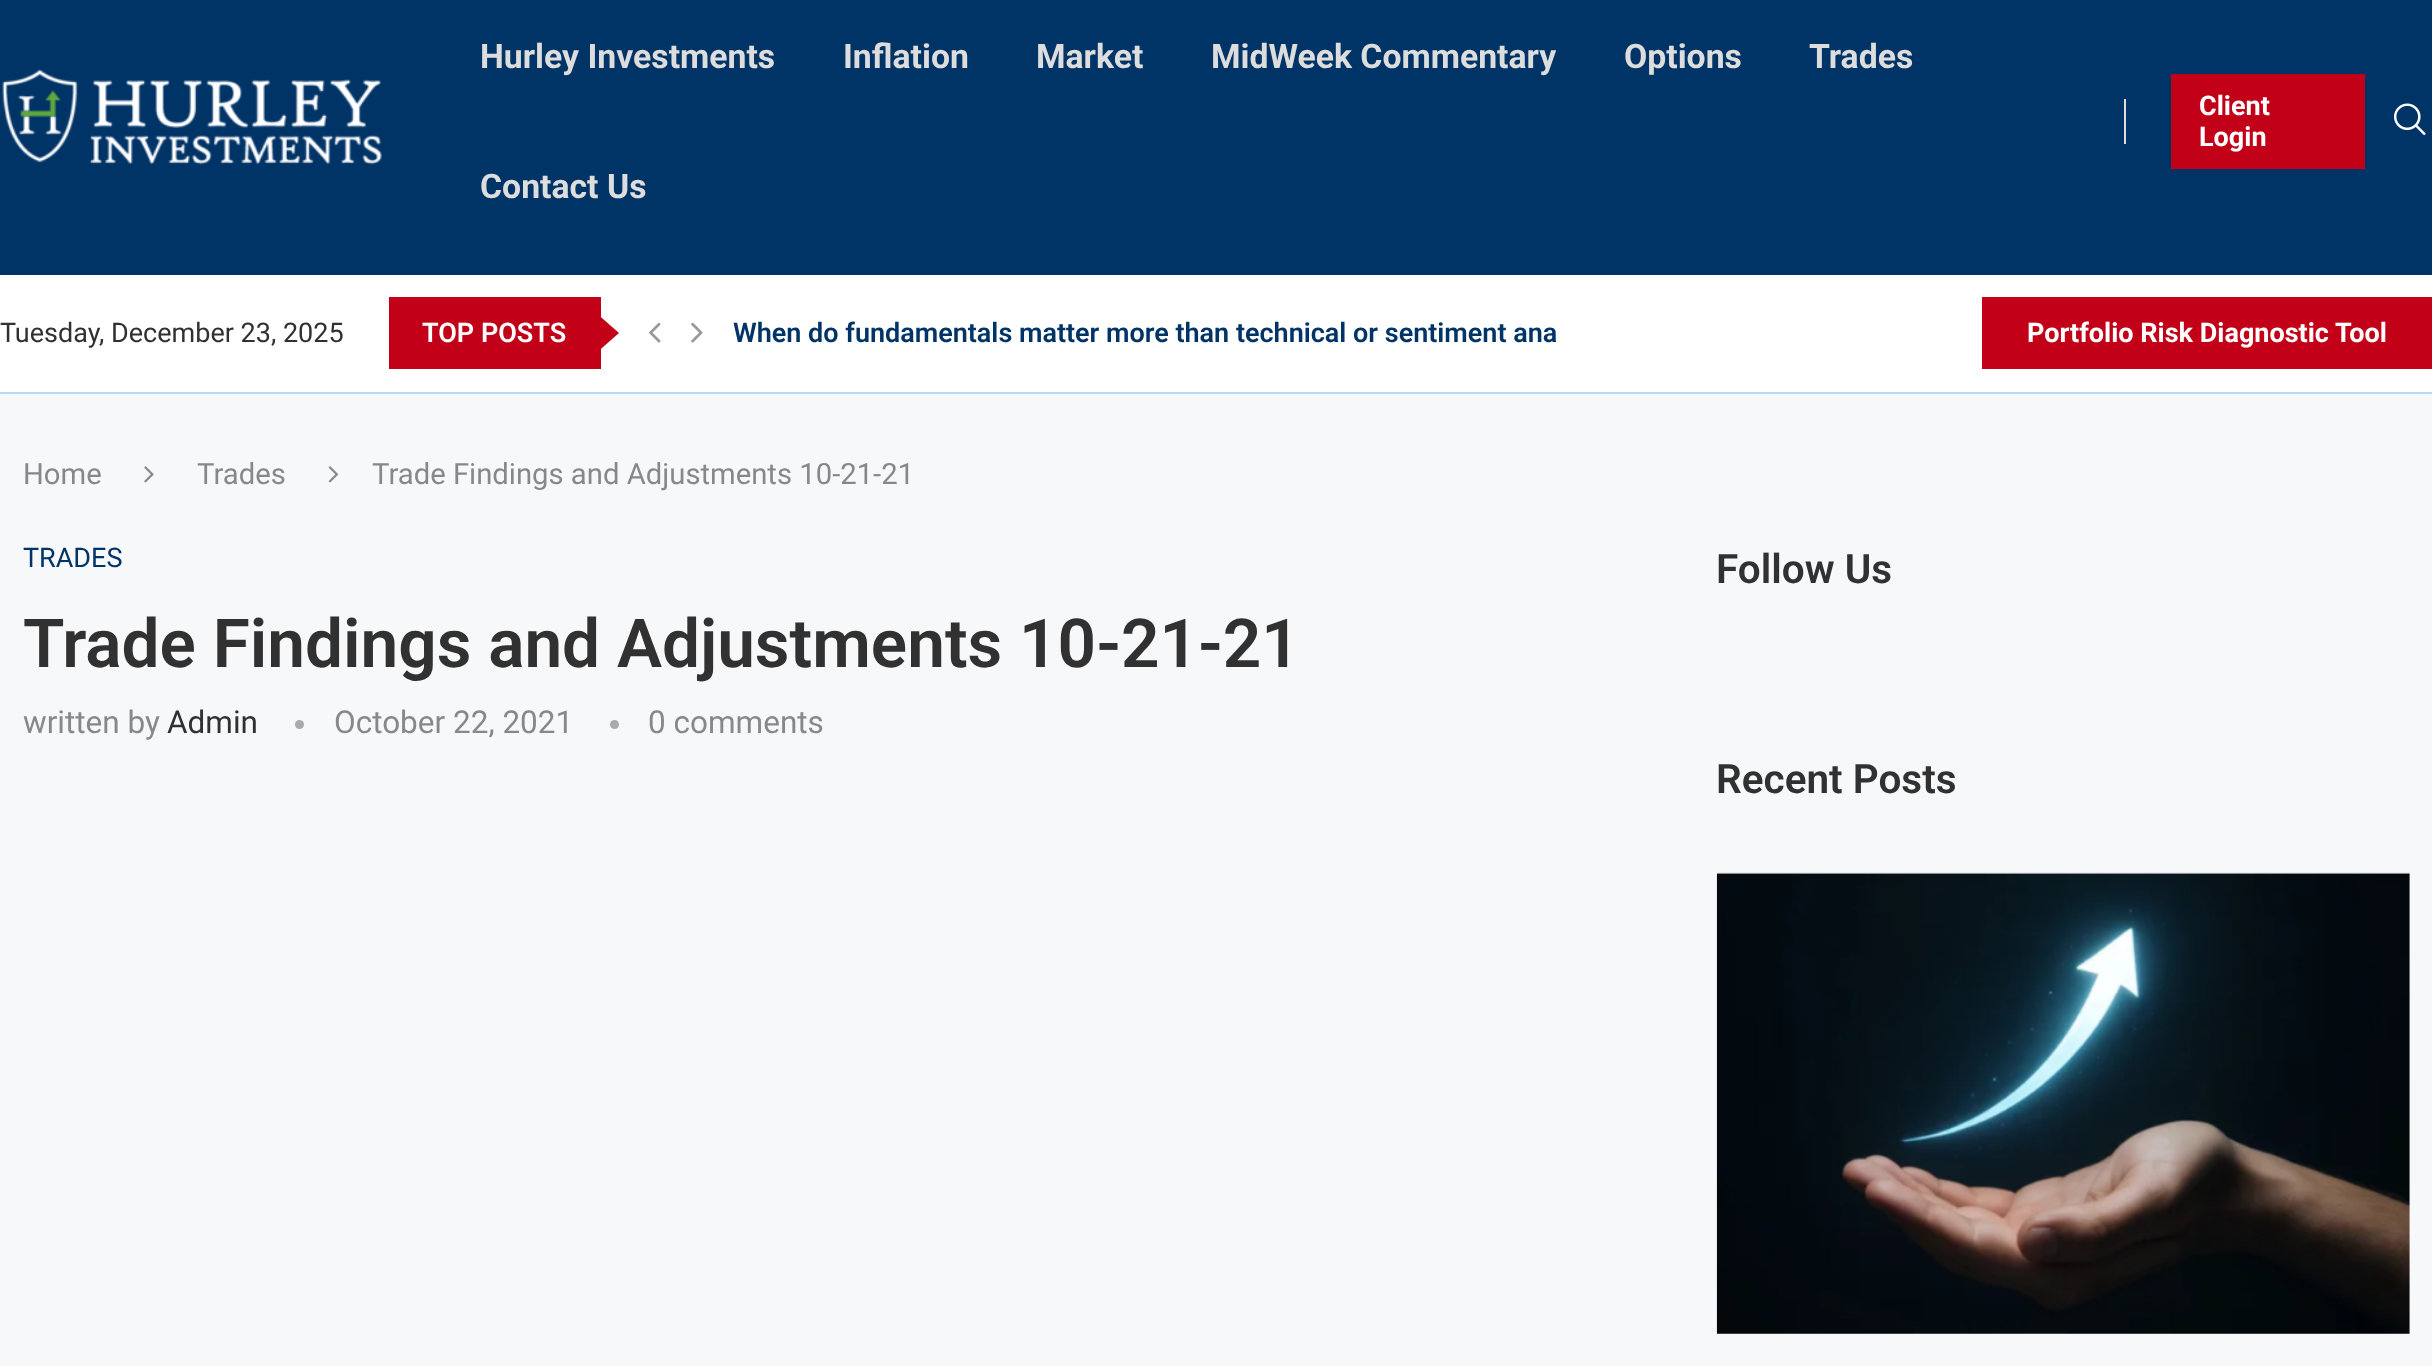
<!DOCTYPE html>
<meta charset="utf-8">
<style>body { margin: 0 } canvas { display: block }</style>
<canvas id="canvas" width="2432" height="1366"></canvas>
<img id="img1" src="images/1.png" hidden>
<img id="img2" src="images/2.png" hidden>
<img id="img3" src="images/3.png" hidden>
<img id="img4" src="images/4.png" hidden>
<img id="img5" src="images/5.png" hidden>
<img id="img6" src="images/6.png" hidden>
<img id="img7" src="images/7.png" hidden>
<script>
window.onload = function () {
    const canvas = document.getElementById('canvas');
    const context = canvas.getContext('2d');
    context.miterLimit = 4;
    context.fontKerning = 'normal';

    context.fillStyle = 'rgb(246, 248, 250)';
    context.fillRect(0, 0, 2432, 1366);
    context.fillStyle = 'rgb(0, 51, 102)';
    context.fillRect(0, 0, 2432, 275);
    context.drawImage(document.getElementById('img1'), 2, 69, 380, 96);
    context.fillStyle = 'rgb(222, 222, 222)';
    context.fillRect(2124, 99, 2, 45);
    context.fillStyle = 'rgb(194, 0, 23)';
    context.fillRect(2171, 74, 194, 95);
    context.drawImage(document.getElementById('img2'), 2394, 103, 32, 32);
    context.fillStyle = 'rgb(255, 255, 255)';
    context.fillRect(0, 275, 2432, 117);
    context.fillStyle = 'rgb(186, 217, 248)';
    context.fillRect(0, 392, 2432, 2);
    context.fillStyle = 'rgb(194, 0, 23)';
    context.fillRect(389, 297, 212, 72);
    context.beginPath();
    context.moveTo(598.5, 351);
    context.lineTo(598.5, 315);
    context.lineTo(619, 333);
    context.closePath();
    context.fill();
    context.drawImage(document.getElementById('img3'), 649, 322, 12, 21);
    context.drawImage(document.getElementById('img4'), 691, 322, 12, 21);
    context.fillRect(1982, 297, 450, 72);
    context.drawImage(document.getElementById('img5'), 144, 466, 10, 17);
    context.drawImage(document.getElementById('img6'), 328, 466, 11, 17);
    context.fillStyle = 'rgb(169, 170, 170)';
    context.beginPath();
    context.arc(299.5, 724.5, 4.5, 0, 2 * Math.PI);
    context.fill();
    context.beginPath();
    context.arc(614.5, 724.5, 4.5, 0, 2 * Math.PI);
    context.fill();
    context.fillStyle = 'rgb(245, 245, 245)';
    context.fillRect(1717, 873, 693, 461);
    context.drawImage(document.getElementById('img7'), 1716, 872, 694, 462);
    context.font = 'bold 33.75px Roboto';
    context.fillStyle = 'rgb(221, 221, 221)';
    context.fillText('Hurley Investments', 480, 68);
    context.fillText('Inflation', 843, 68);
    context.fillText('Market', 1036, 68);
    context.fillText('MidWeek Commentary', 1211, 68);
    context.fillText('Options', 1624, 68);
    context.fillText('Trades', 1809, 68);
    context.fillText('Contact Us', 480, 198);
    context.font = 'bold 27px Roboto';
    context.fillStyle = 'rgb(255, 255, 255)';
    context.fillText('Client', 2199, 115);
    context.fillText('Login', 2199, 146);
    context.font = '27px Roboto';
    context.fillStyle = 'rgb(49, 49, 49)';
    context.fillText('Tuesday, December 23, 2025', 0, 342);
    context.font = '600 27px Roboto';
    context.fillStyle = 'rgb(255, 255, 255)';
    context.fillText('TOP POSTS', 422, 342);
    context.fillStyle = 'rgb(0, 51, 102)';
    context.fillText('When do fundamentals matter more than technical or sentiment ana', 733, 342);
    context.font = 'bold 27px Roboto';
    context.fillStyle = 'rgb(255, 255, 255)';
    context.fillText('Portfolio Risk Diagnostic Tool', 2027, 342);
    context.font = '29.25px Roboto';
    context.fillStyle = 'rgb(136, 136, 136)';
    context.fillText('Home', 23, 484);
    context.fillText('Trades', 197, 484);
    context.fillText('Trade Findings and Adjustments 10-21-21', 372, 484);
    context.font = '27px Roboto';
    context.fillStyle = 'rgb(0, 51, 102)';
    context.fillText('TRADES', 23, 567);
    context.font = '600 67.5px Roboto';
    context.fillStyle = 'rgb(49, 49, 49)';
    context.fillText('Trade Findings and Adjustments 10-21-21', 23, 667);
    context.font = '31.5px Roboto';
    context.fillStyle = 'rgb(136, 136, 136)';
    context.fillText('written by', 23, 733);
    context.fillStyle = 'rgb(49, 49, 49)';
    context.fillText('Admin', 167, 733);
    context.fillStyle = 'rgb(136, 136, 136)';
    context.fillText('October 22, 2021', 334, 733);
    context.fillText('0 comments', 648, 733);
    context.font = '600 40.5px Roboto';
    context.fillStyle = 'rgb(49, 49, 49)';
    context.fillText('Follow Us', 1716, 583);
    context.fillText('Recent Posts', 1716, 793);
};
</script>
